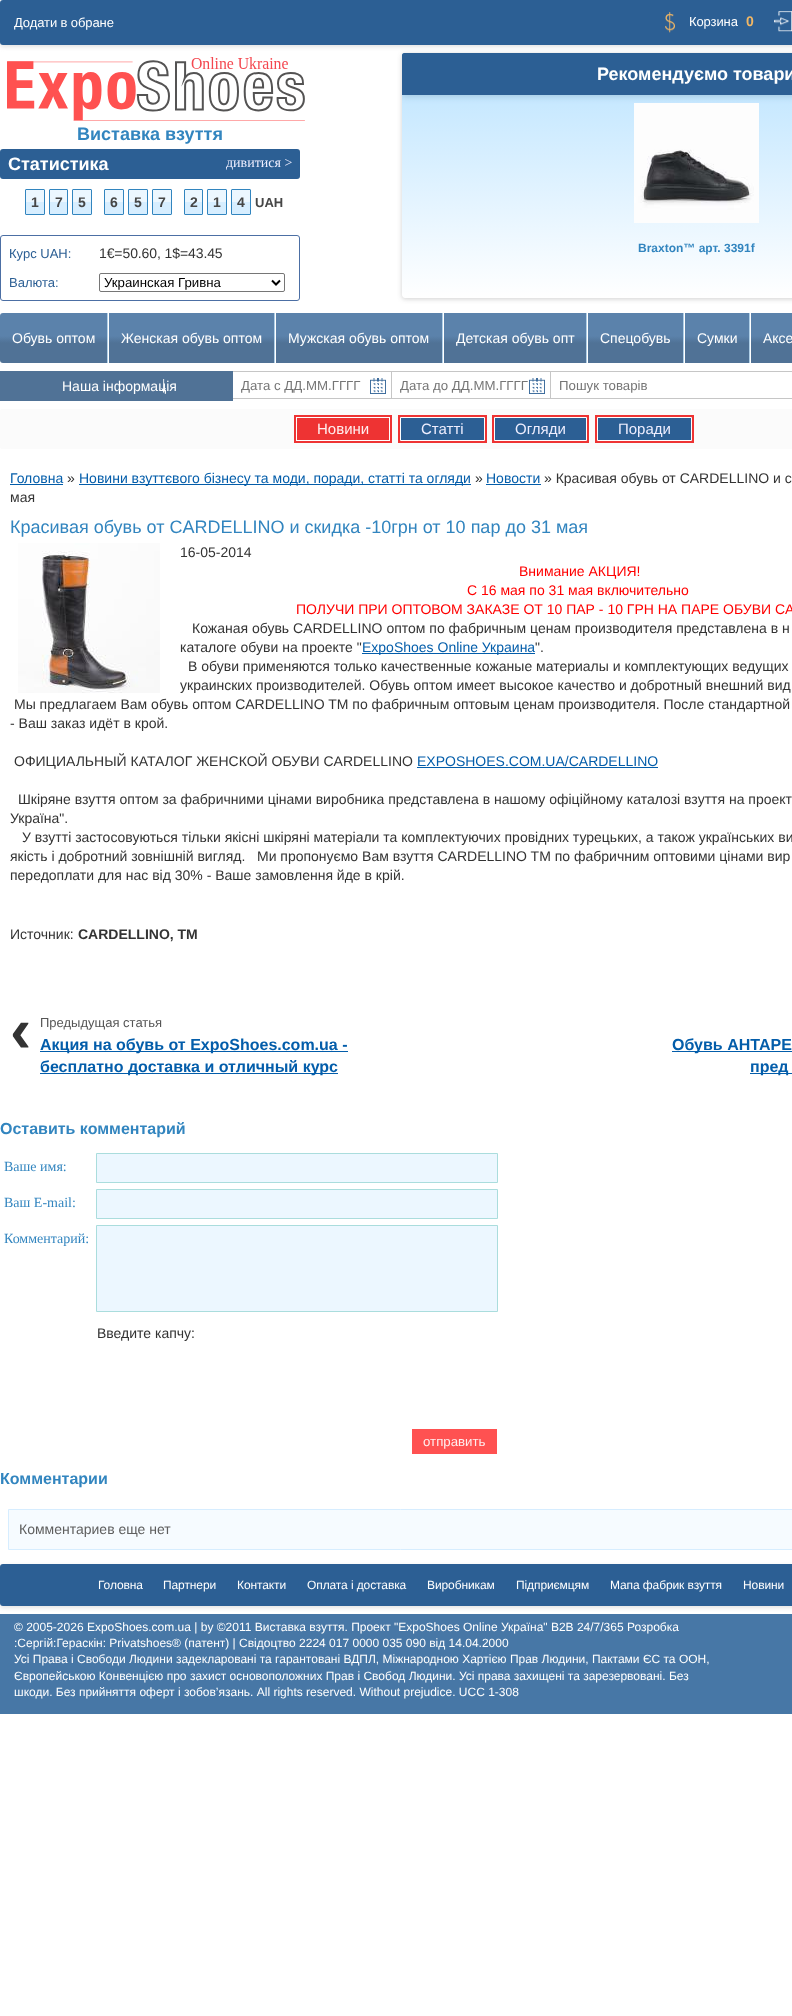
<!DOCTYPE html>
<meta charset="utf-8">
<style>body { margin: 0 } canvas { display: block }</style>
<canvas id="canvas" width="792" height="2016"></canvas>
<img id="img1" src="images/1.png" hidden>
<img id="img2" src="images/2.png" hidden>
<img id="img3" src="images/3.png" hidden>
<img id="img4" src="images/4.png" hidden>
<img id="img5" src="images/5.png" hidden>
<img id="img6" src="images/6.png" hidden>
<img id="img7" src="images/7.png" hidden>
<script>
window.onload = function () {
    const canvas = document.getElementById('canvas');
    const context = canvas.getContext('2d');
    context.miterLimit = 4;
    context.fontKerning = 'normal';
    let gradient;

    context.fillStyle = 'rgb(255, 255, 255)';
    context.fillRect(0, 0, 792, 2016);
    context.fillStyle = 'rgb(227, 227, 227)';
    context.filter = 'blur(2px)';
    context.beginPath();
    context.roundRect(0, 2, 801, 45, 3);
    context.fill();
    context.filter = 'none';
    context.fillStyle = 'rgb(44, 95, 148)';
    context.beginPath();
    context.roundRect(0, 0, 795, 45, 3);
    context.fill();
    context.drawImage(document.getElementById('img1'), 665, 12, 10, 21);
    context.drawImage(document.getElementById('img2'), 774, 11, 18, 21);
    context.drawImage(document.getElementById('img3'), 7, 57, 298, 64);
    context.beginPath();
    context.roundRect(0, 149, 300, 30, 3);
    context.fill();
    context.fillStyle = 'rgb(236, 247, 255)';
    context.fillRect(26, 190, 18, 12);
    context.fillStyle = 'rgb(215, 238, 255)';
    context.fillRect(26, 202, 18, 12);
    context.beginPath();
    context.roundRect(25.5, 189.5, 19, 25, 0.5);
    context.strokeStyle = 'rgb(50, 133, 191)';
    context.stroke();
    context.fillStyle = 'rgb(236, 247, 255)';
    context.fillRect(50, 190, 17, 12);
    context.fillStyle = 'rgb(215, 238, 255)';
    context.fillRect(50, 202, 17, 12);
    context.beginPath();
    context.roundRect(49.5, 189.5, 18, 25, 0.5);
    context.stroke();
    context.fillStyle = 'rgb(236, 247, 255)';
    context.fillRect(73, 190, 18, 12);
    context.fillStyle = 'rgb(215, 238, 255)';
    context.fillRect(73, 202, 18, 12);
    context.beginPath();
    context.roundRect(72.5, 189.5, 19, 25, 0.5);
    context.stroke();
    context.fillStyle = 'rgb(236, 247, 255)';
    context.fillRect(105, 190, 18, 12);
    context.fillStyle = 'rgb(215, 238, 255)';
    context.fillRect(105, 202, 18, 12);
    context.beginPath();
    context.roundRect(104.5, 189.5, 19, 25, 0.5);
    context.stroke();
    context.fillStyle = 'rgb(236, 247, 255)';
    context.fillRect(129, 190, 18, 12);
    context.fillStyle = 'rgb(215, 238, 255)';
    context.fillRect(129, 202, 18, 12);
    context.beginPath();
    context.roundRect(128.5, 189.5, 19, 25, 0.5);
    context.stroke();
    context.fillStyle = 'rgb(236, 247, 255)';
    context.fillRect(153, 190, 18, 12);
    context.fillStyle = 'rgb(215, 238, 255)';
    context.fillRect(153, 202, 18, 12);
    context.beginPath();
    context.roundRect(152.5, 189.5, 19, 25, 0.5);
    context.stroke();
    context.fillStyle = 'rgb(236, 247, 255)';
    context.fillRect(185, 190, 17, 12);
    context.fillStyle = 'rgb(215, 238, 255)';
    context.fillRect(185, 202, 17, 12);
    context.beginPath();
    context.roundRect(184.5, 189.5, 18, 25, 0.5);
    context.stroke();
    context.fillStyle = 'rgb(236, 247, 255)';
    context.fillRect(208, 190, 18, 12);
    context.fillStyle = 'rgb(215, 238, 255)';
    context.fillRect(208, 202, 18, 12);
    context.beginPath();
    context.roundRect(207.5, 189.5, 19, 25, 0.5);
    context.stroke();
    context.fillStyle = 'rgb(236, 247, 255)';
    context.fillRect(232, 190, 18, 12);
    context.fillStyle = 'rgb(215, 238, 255)';
    context.fillRect(232, 202, 18, 12);
    context.beginPath();
    context.roundRect(231.5, 189.5, 19, 25, 0.5);
    context.stroke();
    context.beginPath();
    context.roundRect(0.5, 235.5, 299, 65, 2.5);
    context.strokeStyle = 'rgb(76, 111, 164)';
    context.stroke();
    context.beginPath();
    context.roundRect(99.5, 273.5, 185, 18, 1.5);
    context.strokeStyle = 'rgb(118, 118, 118)';
    context.stroke();
    context.beginPath();
    context.moveTo(272, 280.5);
    context.lineTo(276, 284.5);
    context.lineTo(280, 280.5);
    context.strokeStyle = 'rgb(0, 0, 0)';
    context.lineWidth = 2;
    context.stroke();
    context.fillStyle = 'rgba(54, 54, 54, 0.23)';
    context.filter = 'blur(2.5px)';
    context.beginPath();
    context.roundRect(402, 54, 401, 245, 3);
    context.fill();
    context.filter = 'none';
    gradient = context.createLinearGradient(696, 53, 696, 298);
    gradient.addColorStop(0, 'rgb(186, 227, 255)');
    gradient.addColorStop(1, 'rgb(255, 255, 255)');
    context.fillStyle = gradient;
    context.beginPath();
    context.moveTo(404, 53);
    context.lineTo(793, 53);
    context.bezierCurveTo(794, 53, 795, 54, 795, 55);
    context.lineTo(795, 295);
    context.bezierCurveTo(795, 296.5, 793.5, 298, 792, 298);
    context.lineTo(405, 298);
    context.bezierCurveTo(403.5, 298, 402, 296.5, 402, 295);
    context.lineTo(402, 55);
    context.bezierCurveTo(402, 54, 403, 53, 404, 53);
    context.closePath();
    context.fill();
    context.save();
    context.beginPath();
    context.moveTo(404, 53);
    context.lineTo(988, 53);
    context.bezierCurveTo(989, 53, 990, 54, 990, 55);
    context.lineTo(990, 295);
    context.bezierCurveTo(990, 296.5, 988.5, 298, 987, 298);
    context.lineTo(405, 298);
    context.bezierCurveTo(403.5, 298, 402, 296.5, 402, 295);
    context.lineTo(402, 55);
    context.bezierCurveTo(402, 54, 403, 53, 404, 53);
    context.closePath();
    context.clip();
    context.fillStyle = 'rgb(164, 202, 227)';
    context.filter = 'blur(3px)';
    context.beginPath();
    context.rect(402, 55, 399, 42);
    context.fill();
    context.filter = 'none';
    context.restore();
    context.fillStyle = 'rgb(44, 95, 148)';
    context.beginPath();
    context.moveTo(404, 53);
    context.lineTo(792, 53);
    context.bezierCurveTo(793, 53, 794, 54, 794, 55);
    context.lineTo(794, 95);
    context.lineTo(402, 95);
    context.lineTo(402, 55);
    context.bezierCurveTo(402, 54, 403, 53, 404, 53);
    context.closePath();
    context.fill();
    context.drawImage(document.getElementById('img4'), 634, 103, 125, 120);
    gradient = context.createLinearGradient(495, 363, 495, 313);
    gradient.addColorStop(0.4, 'rgb(80, 114, 150)');
    gradient.addColorStop(0.54, 'rgb(91, 130, 171)');
    context.fillStyle = gradient;
    context.beginPath();
    context.roundRect(0, 313, 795, 50, 3);
    context.fill();
    context.fillStyle = 'rgb(175, 207, 231)';
    context.fillRect(107, 313, 1, 50);
    context.fillStyle = 'rgb(255, 255, 255)';
    context.fillRect(108, 313, 1, 50);
    context.fillStyle = 'rgb(175, 207, 231)';
    context.fillRect(274, 313, 1, 50);
    context.fillStyle = 'rgb(255, 255, 255)';
    context.fillRect(275, 313, 1, 50);
    context.fillStyle = 'rgb(175, 207, 231)';
    context.fillRect(442, 313, 1, 50);
    context.fillStyle = 'rgb(255, 255, 255)';
    context.fillRect(443, 313, 1, 50);
    context.fillStyle = 'rgb(175, 207, 231)';
    context.fillRect(586, 313, 1, 50);
    context.fillStyle = 'rgb(255, 255, 255)';
    context.fillRect(587, 313, 1, 50);
    context.fillStyle = 'rgb(175, 207, 231)';
    context.fillRect(683, 313, 1, 50);
    context.fillStyle = 'rgb(255, 255, 255)';
    context.fillRect(684, 313, 1, 50);
    context.fillStyle = 'rgb(175, 207, 231)';
    context.fillRect(749, 313, 1, 50);
    context.fillStyle = 'rgb(255, 255, 255)';
    context.fillRect(750, 313, 1, 50);
    context.fillStyle = 'rgb(80, 114, 150)';
    context.fillRect(0, 371, 233, 30);
    context.drawImage(document.getElementById('img5'), 161, 379, 5, 14);
    context.save();
    context.beginPath();
    context.rect(233, 371, 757, 30);
    context.clip();
    context.strokeStyle = 'rgb(198, 198, 198)';
    context.lineWidth = 1;
    context.strokeRect(232.5, 371.5, 159, 27);
    context.restore();
    context.drawImage(document.getElementById('img6'), 370, 378, 16, 16);
    context.strokeStyle = 'rgb(198, 198, 198)';
    context.lineWidth = 1;
    context.strokeRect(391.5, 371.5, 159, 27);
    context.drawImage(document.getElementById('img6'), 529, 378, 16, 16);
    context.strokeRect(550.5, 371.5, 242, 27);
    context.fillStyle = 'rgb(251, 251, 251)';
    context.beginPath();
    context.roundRect(0, 409, 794, 40, 2);
    context.fill();
    context.fillStyle = 'rgb(238, 51, 51)';
    context.fillRect(294, 415, 98, 28);
    context.strokeStyle = 'rgb(255, 255, 255)';
    context.strokeRect(296.5, 417.5, 93, 23);
    context.fillRect(398, 415, 89, 28);
    context.fillStyle = 'rgb(44, 95, 148)';
    context.beginPath();
    context.rect(400.5, 417.5, 84, 23);
    context.fill();
    context.stroke();
    context.fillStyle = 'rgb(238, 51, 51)';
    context.fillRect(492, 415, 97, 28);
    context.fillStyle = 'rgb(44, 95, 148)';
    context.beginPath();
    context.rect(494.5, 417.5, 92, 23);
    context.fill();
    context.stroke();
    context.fillStyle = 'rgb(238, 51, 51)';
    context.fillRect(595, 415, 99, 28);
    context.fillStyle = 'rgb(44, 95, 148)';
    context.beginPath();
    context.rect(597.5, 417.5, 94, 23);
    context.fill();
    context.stroke();
    context.fillStyle = 'rgb(3, 93, 170)';
    context.fillRect(10, 484, 53, 1);
    context.fillRect(79, 484, 392, 1);
    context.fillRect(486, 484, 55, 1);
    context.drawImage(document.getElementById('img7'), 18, 543, 142, 150);
    context.fillRect(362, 653, 173, 1);
    context.fillRect(417, 767, 241, 1);
    context.fillRect(40, 1051, 308, 1);
    context.fillRect(40, 1073, 298, 1);
    context.fillRect(672, 1051, 120, 1);
    context.fillRect(750, 1073, 42, 1);
    context.fillStyle = 'rgb(236, 247, 255)';
    context.beginPath();
    context.rect(96.5, 1153.5, 401, 29);
    context.fill();
    context.strokeStyle = 'rgb(170, 221, 221)';
    context.stroke();
    context.beginPath();
    context.rect(96.5, 1189.5, 401, 29);
    context.fill();
    context.stroke();
    context.beginPath();
    context.rect(96.5, 1225.5, 401, 86);
    context.fill();
    context.stroke();
    context.fillStyle = 'rgb(255, 81, 81)';
    context.fillRect(412, 1429, 85, 25);
    context.fillStyle = 'rgb(246, 251, 255)';
    context.beginPath();
    context.rect(8.5, 1509.5, 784, 40);
    context.fill();
    context.strokeStyle = 'rgb(214, 237, 255)';
    context.stroke();
    context.fillStyle = 'rgb(71, 119, 166)';
    context.fillRect(0, 1614, 792, 100);
    context.fillStyle = 'rgb(227, 227, 227)';
    context.filter = 'blur(2px)';
    context.beginPath();
    context.roundRect(0, 1566, 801, 42, 3);
    context.fill();
    context.filter = 'none';
    context.fillStyle = 'rgb(44, 95, 148)';
    context.beginPath();
    context.roundRect(0, 1564, 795, 42, 3);
    context.fill();
    context.letterSpacing = '-0.1px';
    context.font = '13px Liberation Sans';
    context.fillStyle = 'rgb(255, 255, 255)';
    context.fillText('Додати в обране', 14, 27);
    context.fillText('Корзина', 689, 26);
    context.letterSpacing = '0px';
    context.font = 'bold 14px Liberation Sans';
    context.fillStyle = 'rgb(242, 183, 100)';
    context.fillText('0', 746, 26);
    context.font = 'bold 18px Liberation Sans';
    context.fillStyle = 'rgb(50, 133, 191)';
    context.fillText('Виставка взуття', 77, 140);
    context.fillStyle = 'rgb(255, 255, 255)';
    context.fillText('Статистика', 8, 170);
    context.font = '14px Liberation Serif';
    context.fillStyle = 'rgb(238, 238, 255)';
    context.fillText('дивитися >', 226, 167);
    context.font = 'bold 14px Liberation Sans';
    context.fillStyle = 'rgb(70, 70, 70)';
    context.fillText('1', 31, 207);
    context.fillText('7', 55, 207);
    context.fillText('5', 78, 207);
    context.fillText('6', 110, 207);
    context.fillText('5', 134, 207);
    context.fillText('7', 158, 207);
    context.fillText('2', 190, 207);
    context.fillText('1', 213, 207);
    context.fillText('4', 237, 207);
    context.font = 'bold 13px Liberation Sans';
    context.fillText('UAH', 255, 207);
    context.font = '13px Liberation Sans';
    context.fillStyle = 'rgb(44, 95, 148)';
    context.fillText('Курс UAH:', 9, 258);
    context.letterSpacing = '-0.1px';
    context.font = '14px Liberation Sans';
    context.fillStyle = 'rgb(51, 51, 51)';
    context.fillText('1€=50.60, 1$=43.45', 99, 258);
    context.letterSpacing = '0px';
    context.font = '13px Liberation Sans';
    context.fillStyle = 'rgb(44, 95, 148)';
    context.fillText('Валюта:', 9, 287);
    context.font = '13.25px Liberation Sans';
    context.fillStyle = 'rgb(0, 0, 0)';
    context.fillText('Украинская Гривна', 104, 287);
    context.font = 'bold 18px Liberation Sans';
    context.fillStyle = 'rgb(255, 255, 255)';
    context.fillText('Рекомендуємо товари', 597, 80);
    context.font = 'bold 12px Liberation Sans';
    context.fillStyle = 'rgb(50, 133, 191)';
    context.fillText('Braxton™ арт. 3391f', 638, 252);
    context.font = '14px Liberation Sans';
    context.fillStyle = 'rgb(255, 255, 255)';
    context.fillText('Обувь оптом', 12, 343);
    context.fillText('Женская обувь оптом', 121, 343);
    context.fillText('Мужская обувь оптом', 288, 343);
    context.fillText('Детская обувь опт', 456, 343);
    context.fillText('Спецобувь', 600, 343);
    context.fillText('Сумки', 697, 343);
    context.fillText('Аксе', 763, 343);
    context.fillText('Наша інформація', 62, 391);
    context.font = '13.25px Liberation Sans';
    context.fillStyle = 'rgb(117, 117, 117)';
    context.fillText('Дата с ДД.ММ.ГГГГ', 241, 390);
    context.fillText('Дата до ДД.ММ.ГГГГ', 400, 390);
    context.fillText('Пошук товарів', 559, 390);
    context.font = '15px Liberation Sans';
    context.fillStyle = 'rgb(255, 238, 238)';
    context.fillText('Новини', 317, 434);
    context.fillStyle = 'rgb(238, 238, 255)';
    context.fillText('Статті', 421, 434);
    context.fillText('Огляди', 515, 434);
    context.fillText('Поради', 618, 434);
    context.font = '14px Liberation Sans';
    context.fillStyle = 'rgb(3, 93, 170)';
    context.fillText('Головна', 10, 483);
    context.fillStyle = 'rgb(51, 51, 51)';
    context.fillText('»', 67, 483);
    context.fillStyle = 'rgb(3, 93, 170)';
    context.fillText('Новини взуттєвого бізнесу та моди, поради, статті та огляди', 79, 483);
    context.fillStyle = 'rgb(51, 51, 51)';
    context.fillText('»', 475, 483);
    context.fillStyle = 'rgb(3, 93, 170)';
    context.fillText('Новости', 486, 483);
    context.fillStyle = 'rgb(51, 51, 51)';
    context.fillText('» Красивая обувь от CARDELLINO и с', 544, 483);
    context.fillText('мая', 10, 502);
    context.font = '18px Liberation Sans';
    context.fillStyle = 'rgb(50, 133, 191)';
    context.fillText('Красивая обувь от CARDELLINO и скидка -10грн от 10 пар до 31 мая', 10, 533);
    context.font = '14px Liberation Sans';
    context.fillStyle = 'rgb(51, 51, 51)';
    context.fillText('16-05-2014', 180, 557);
    context.fillStyle = 'rgb(255, 0, 0)';
    context.fillText('Внимание АКЦИЯ!', 519, 576);
    context.fillText('С 16 мая по 31 мая включительно', 467, 595);
    context.fillText('ПОЛУЧИ ПРИ ОПТОВОМ ЗАКАЗЕ ОТ 10 ПАР - 10 ГРН НА ПАРЕ ОБУВИ CA', 296, 614);
    context.fillStyle = 'rgb(51, 51, 51)';
    context.fillText('Кожаная обувь CARDELLINO оптом по фабричным ценам производителя представлена в н', 192, 633);
    context.fillText('каталоге обуви на проекте "', 180, 652);
    context.fillStyle = 'rgb(3, 93, 170)';
    context.fillText('ExpoShoes Online Украина', 362, 652);
    context.fillStyle = 'rgb(51, 51, 51)';
    context.fillText('".', 535, 652);
    context.fillText('В обуви применяются только качественные кожаные материалы и комплектующих ведущих', 188, 671);
    context.fillText('украинских производителей. Обувь оптом имеет высокое качество и добротный внешний вид', 180, 690);
    context.fillText('Мы предлагаем Вам обувь оптом CARDELLINO TM по фабричным оптовым ценам производителя. После стандартной', 14, 709);
    context.fillText('- Ваш заказ идёт в крой.', 10, 728);
    context.fillText('ОФИЦИАЛЬНЫЙ КАТАЛОГ ЖЕНСКОЙ ОБУВИ CARDELLINO', 14, 766);
    context.fillStyle = 'rgb(3, 93, 170)';
    context.fillText('EXPOSHOES.COM.UA/CARDELLINO', 417, 766);
    context.fillStyle = 'rgb(51, 51, 51)';
    context.fillText('Шкіряне взуття оптом за фабричними цінами виробника представлена в нашому офіційному каталозі взуття на проект', 18, 804);
    context.fillText('Україна".', 10, 823);
    context.fillText('У взутті застосовуються тільки якісні шкіряні матеріали та комплектуючих провідних турецьких, а також українських ви', 22, 842);
    context.fillText('якість і добротний зовнішній вигляд.   Ми пропонуємо Вам взуття CARDELLINO TM по фабричним оптовими цінами вир', 10, 861);
    context.fillText('передоплати для нас від 30% - Ваше замовлення йде в крій.', 10, 880);
    context.fillText('Источник:', 10, 939);
    context.font = 'bold 14px Liberation Sans';
    context.fillText('CARDELLINO, TM', 78, 939);
    context.font = 'bold 64px Liberation Sans';
    context.fillText('‹', 10, 1052);
    context.font = '13px Liberation Sans';
    context.fillStyle = 'rgb(85, 85, 85)';
    context.fillText('Предыдущая статья', 40, 1027);
    context.font = 'bold 16px Liberation Sans';
    context.fillStyle = 'rgb(3, 93, 170)';
    context.fillText('Акция на обувь от ExpoShoes.com.ua -', 40, 1050);
    context.fillText('бесплатно доставка и отличный курс', 40, 1072);
    context.fillText('Обувь АНТАРЕ', 672, 1050);
    context.fillText('пред', 750, 1072);
    context.fillStyle = 'rgb(50, 133, 191)';
    context.fillText('Оставить комментарий', 0, 1134);
    context.font = '14px Liberation Serif';
    context.fillText('Ваше имя:', 4, 1171);
    context.fillText('Ваш E-mail:', 4, 1207);
    context.fillText('Комментарий:', 4, 1243);
    context.font = '14px Liberation Sans';
    context.fillStyle = 'rgb(51, 51, 51)';
    context.fillText('Введите капчу:', 97, 1338);
    context.font = '13.25px Liberation Sans';
    context.fillStyle = 'rgb(255, 238, 238)';
    context.fillText('отправить', 423, 1446);
    context.font = 'bold 16px Liberation Sans';
    context.fillStyle = 'rgb(50, 133, 191)';
    context.fillText('Комментарии', 0, 1484);
    context.font = '14px Liberation Sans';
    context.fillStyle = 'rgb(95, 95, 95)';
    context.fillText('Комментариев еще нет', 19, 1534);
    context.letterSpacing = '-0.1px';
    context.font = '12px Liberation Sans';
    context.fillStyle = 'rgb(255, 255, 255)';
    context.fillText('Головна', 98, 1589);
    context.fillText('Партнери', 163, 1589);
    context.fillText('Контакти', 237, 1589);
    context.fillText('Оплата і доставка', 307, 1589);
    context.fillText('Виробникам', 427, 1589);
    context.fillText('Підприємцям', 516, 1589);
    context.fillText('Мапа фабрик взуття', 610, 1589);
    context.fillText('Новини', 743, 1589);
    context.letterSpacing = '0px';
    context.fillText('© 2005-2026 ExpoShoes.com.ua | by ©2011 Виставка взуття. Проект "ExpoShoes Online Україна" B2B 24/7/365 Розробка', 14, 1631);
    context.fillText(':Сергій:Гераскін: Privatshoes® (патент) | Свідоцтво 2224 017 0000 035 090 від 14.04.2000', 14, 1647);
    context.fillText('Усі Права і Свободи Людини задекларовані та гарантовані ВДПЛ, Міжнародною Хартією Прав Людини, Пактами ЄС та ООН,', 14, 1663);
    context.fillText('Європейською Конвенцією про захист основоположних Прав і Свобод Людини. Усі права захищені та зарезервовані. Без', 14, 1680);
    context.fillText('шкоди. Без прийняття оферт і зобов’язань. All rights reserved. Without prejudice. UCC 1-308', 14, 1696);
};
</script>
